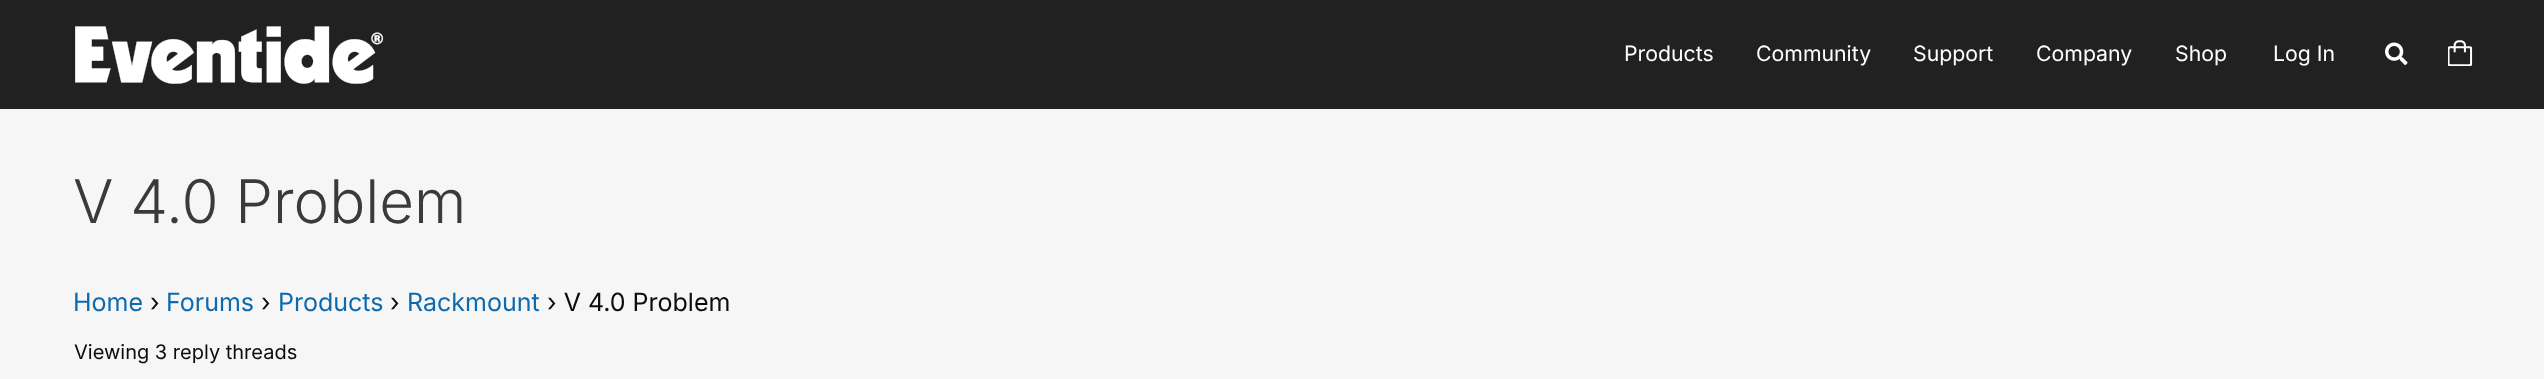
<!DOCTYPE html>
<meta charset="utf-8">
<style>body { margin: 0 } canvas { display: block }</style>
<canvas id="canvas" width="2544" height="379"></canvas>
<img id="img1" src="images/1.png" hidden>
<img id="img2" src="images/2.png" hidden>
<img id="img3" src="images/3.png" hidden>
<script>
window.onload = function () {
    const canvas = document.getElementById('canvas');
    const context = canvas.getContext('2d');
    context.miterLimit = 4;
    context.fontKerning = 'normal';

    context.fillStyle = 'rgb(246, 246, 246)';
    context.fillRect(0, 0, 2544, 379);
    context.fillStyle = 'rgb(34, 33, 33)';
    context.fillRect(0, 0, 2544, 109);
    context.drawImage(document.getElementById('img1'), 75, 26, 309, 58);
    context.drawImage(document.getElementById('img2'), 2385, 42, 23, 23);
    context.drawImage(document.getElementById('img3'), 2448, 40, 25, 26);
    context.font = '21.25px Inter';
    context.fillStyle = 'rgb(255, 255, 255)';
    context.fillText('Products', 1624, 61);
    context.fillText('Community', 1756, 61);
    context.fillText('Support', 1913, 61);
    context.fillText('Company', 2036, 61);
    context.fillText('Shop', 2175, 61);
    context.fillText('Log In', 2273, 61);
    context.font = '300 60px Inter';
    context.fillStyle = 'rgb(58, 58, 58)';
    context.fillText('V 4.0 Problem', 73, 223);
    context.font = '25px Inter';
    context.fillStyle = 'rgb(14, 106, 175)';
    context.fillText('Home', 73, 311);
    context.fillStyle = 'rgb(12, 12, 12)';
    context.fillText('›', 150, 311);
    context.fillStyle = 'rgb(14, 106, 175)';
    context.fillText('Forums', 166, 311);
    context.fillStyle = 'rgb(12, 12, 12)';
    context.fillText('›', 261, 311);
    context.fillStyle = 'rgb(14, 106, 175)';
    context.fillText('Products', 278, 311);
    context.fillStyle = 'rgb(12, 12, 12)';
    context.fillText('›', 390, 311);
    context.fillStyle = 'rgb(14, 106, 175)';
    context.fillText('Rackmount', 407, 311);
    context.fillStyle = 'rgb(12, 12, 12)';
    context.fillText('› V 4.0 Problem', 547, 311);
    context.font = '20px Inter';
    context.fillText('Viewing 3 reply threads', 74, 359);
};
</script>
